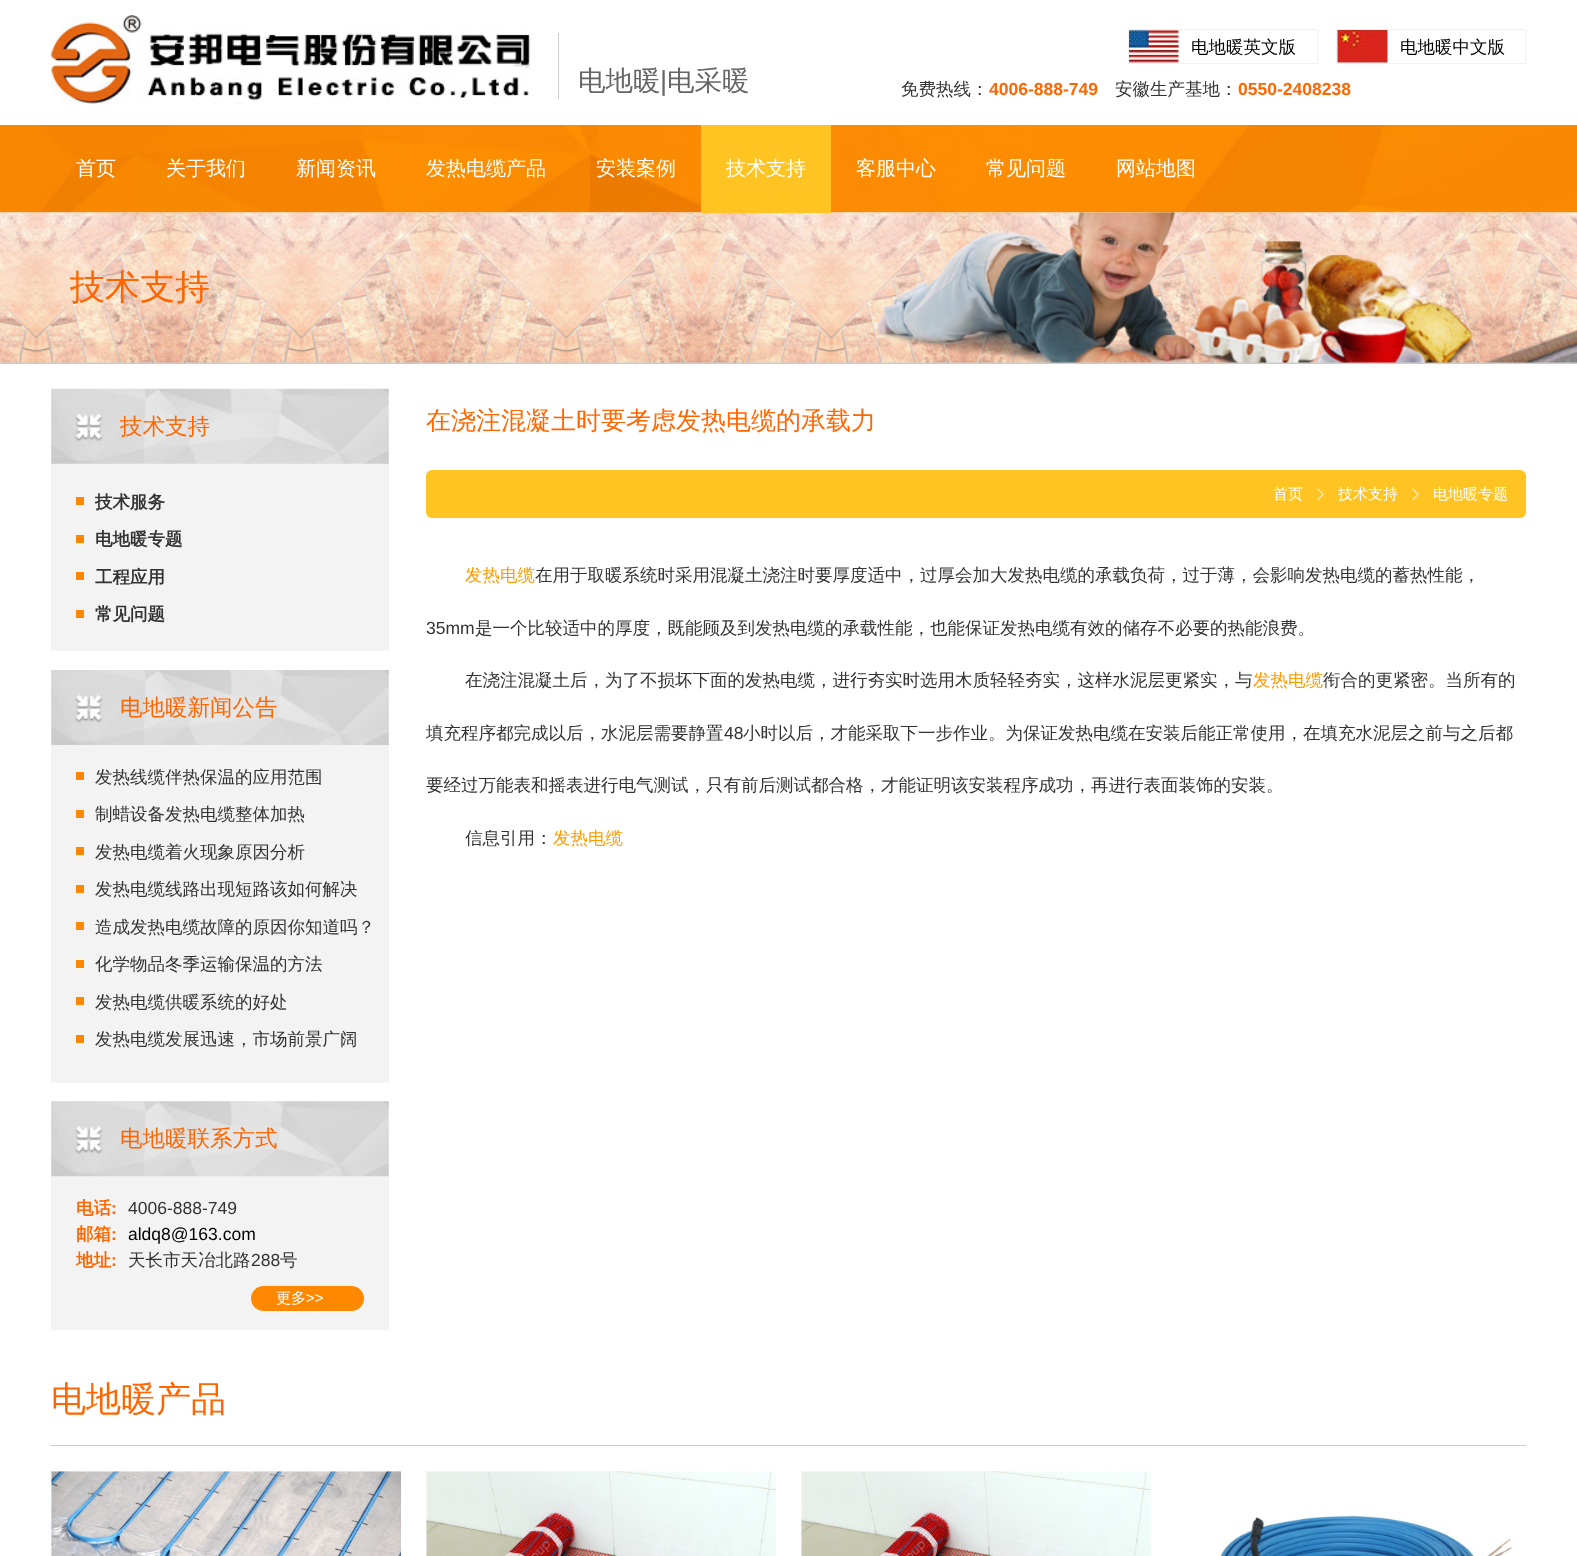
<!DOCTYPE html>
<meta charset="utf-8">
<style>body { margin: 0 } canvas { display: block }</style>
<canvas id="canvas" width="1577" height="1556"></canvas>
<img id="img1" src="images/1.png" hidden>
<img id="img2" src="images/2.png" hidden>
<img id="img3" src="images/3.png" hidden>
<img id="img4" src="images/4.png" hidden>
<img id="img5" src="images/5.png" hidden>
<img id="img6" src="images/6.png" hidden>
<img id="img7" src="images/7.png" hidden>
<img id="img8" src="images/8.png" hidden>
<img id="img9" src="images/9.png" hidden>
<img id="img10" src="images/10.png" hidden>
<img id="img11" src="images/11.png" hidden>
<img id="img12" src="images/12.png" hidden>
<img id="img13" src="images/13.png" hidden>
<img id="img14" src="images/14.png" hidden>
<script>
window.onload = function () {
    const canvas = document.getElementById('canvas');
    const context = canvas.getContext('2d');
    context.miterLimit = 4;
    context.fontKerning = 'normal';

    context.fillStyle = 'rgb(255, 255, 255)';
    context.fillRect(0, 0, 1577, 1556);
    context.drawImage(document.getElementById('img1'), 51, 15, 480, 89);
    context.fillStyle = 'rgb(204, 204, 204)';
    context.fillRect(558, 33, 1, 66);
    context.drawImage(document.getElementById('img2'), 1129, 30, 50, 33);
    context.strokeStyle = 'rgb(241, 241, 241)';
    context.strokeRect(1128.5, 29.5, 189, 34);
    context.drawImage(document.getElementById('img3'), 1337, 30, 51, 33);
    context.strokeRect(1336.5, 29.5, 189, 34);
    context.drawImage(document.getElementById('img4'), 0, 125, 1577, 88);
    context.fillRect(0, 362, 1577, 2);
    context.drawImage(document.getElementById('img5'), 0, 212, 1577, 151);
    context.fillStyle = 'rgb(255, 195, 34)';
    context.fillRect(701, 125, 130, 88);
    context.fillStyle = 'rgb(243, 243, 243)';
    context.fillRect(51, 389, 338, 262);
    context.drawImage(document.getElementById('img6'), 51, 388, 338, 76);
    context.fillStyle = 'rgb(255, 135, 2)';
    context.fillRect(76, 497, 8, 8);
    context.fillRect(76, 535, 8, 8);
    context.fillRect(76, 572, 8, 8);
    context.fillRect(76, 610, 8, 8);
    context.fillStyle = 'rgb(243, 243, 243)';
    context.fillRect(51, 670, 338, 413);
    context.drawImage(document.getElementById('img7'), 51, 670, 338, 75);
    context.fillStyle = 'rgb(255, 135, 2)';
    context.fillRect(76, 772, 8, 8);
    context.fillRect(76, 810, 8, 8);
    context.fillRect(76, 847, 8, 8);
    context.fillRect(76, 885, 8, 8);
    context.fillRect(76, 922, 8, 8);
    context.fillRect(76, 960, 8, 8);
    context.fillRect(76, 997, 8, 8);
    context.fillRect(76, 1035, 8, 8);
    context.fillStyle = 'rgb(243, 243, 243)';
    context.fillRect(51, 1101, 338, 229);
    context.drawImage(document.getElementById('img8'), 51, 1101, 338, 76);
    context.fillStyle = 'rgb(255, 136, 0)';
    context.beginPath();
    context.roundRect(251, 1286, 113, 25, 12.5);
    context.fill();
    context.fillStyle = 'rgb(255, 195, 34)';
    context.beginPath();
    context.roundRect(426, 470, 1100, 48, 6);
    context.fill();
    context.drawImage(document.getElementById('img9'), 1317, 488, 7, 13);
    context.drawImage(document.getElementById('img10'), 1412, 488, 7, 13);
    context.fillStyle = 'rgb(204, 204, 204)';
    context.fillRect(51, 1445, 1475, 1);
    context.drawImage(document.getElementById('img11'), 51, 1471, 351, 85);
    context.drawImage(document.getElementById('img12'), 426, 1471, 350, 85);
    context.drawImage(document.getElementById('img13'), 801, 1471, 350, 85);
    context.drawImage(document.getElementById('img14'), 1218, 1515, 294, 41);
    context.font = '500 27.5px WenQuanYi Zen Hei';
    context.fillStyle = 'rgb(102, 102, 102)';
    context.fillText('电地暖', 578, 90);
    context.font = '27.5px Liberation Sans';
    context.fillText('|', 660, 90);
    context.font = '500 27.5px WenQuanYi Zen Hei';
    context.fillText('电采暖', 667, 90);
    context.font = '500 17.5px WenQuanYi Zen Hei';
    context.fillStyle = 'rgb(0, 0, 0)';
    context.fillText('电地暖英文版', 1191, 53);
    context.fillText('电地暖中文版', 1400, 53);
    context.fillStyle = 'rgb(51, 51, 51)';
    context.fillText('免费热线：', 901, 95);
    context.font = 'bold 17.5px Liberation Sans';
    context.fillStyle = 'rgb(255, 102, 0)';
    context.fillText('4006-888-749', 989, 95);
    context.font = '500 17.5px WenQuanYi Zen Hei';
    context.fillStyle = 'rgb(51, 51, 51)';
    context.fillText('安徽生产基地：', 1115, 95);
    context.font = 'bold 17.5px Liberation Sans';
    context.fillStyle = 'rgb(255, 102, 0)';
    context.fillText('0550-2408238', 1238, 95);
    context.font = '500 20px WenQuanYi Zen Hei';
    context.fillStyle = 'rgb(255, 255, 255)';
    context.fillText('首页', 76, 175);
    context.fillText('关于我们', 166, 175);
    context.fillText('新闻资讯', 296, 175);
    context.fillText('发热电缆产品', 426, 175);
    context.fillText('安装案例', 596, 175);
    context.fillText('技术支持', 726, 175);
    context.fillText('客服中心', 856, 175);
    context.fillText('常见问题', 986, 175);
    context.fillText('网站地图', 1116, 175);
    context.font = '500 35px WenQuanYi Zen Hei';
    context.fillStyle = 'rgb(255, 102, 0)';
    context.fillText('技术支持', 70, 299);
    context.font = '500 22.5px WenQuanYi Zen Hei';
    context.fillText('技术支持', 120, 434);
    context.font = 'bold 17.5px WenQuanYi Zen Hei';
    context.fillStyle = 'rgb(51, 51, 51)';
    context.fillText('技术服务', 95, 508);
    context.fillText('电地暖专题', 95, 545);
    context.fillText('工程应用', 95, 583);
    context.fillText('常见问题', 95, 620);
    context.font = '500 22.5px WenQuanYi Zen Hei';
    context.fillStyle = 'rgb(255, 102, 0)';
    context.fillText('电地暖新闻公告', 120, 715);
    context.font = '500 17.5px WenQuanYi Zen Hei';
    context.fillStyle = 'rgb(51, 51, 51)';
    context.fillText('发热线缆伴热保温的应用范围', 95, 783);
    context.fillText('制蜡设备发热电缆整体加热', 95, 820);
    context.fillText('发热电缆着火现象原因分析', 95, 858);
    context.fillText('发热电缆线路出现短路该如何解决', 95, 895);
    context.fillText('造成发热电缆故障的原因你知道吗？', 95, 933);
    context.fillText('化学物品冬季运输保温的方法', 95, 970);
    context.fillText('发热电缆供暖系统的好处', 95, 1008);
    context.fillText('发热电缆发展迅速，市场前景广阔', 95, 1045);
    context.font = '500 22.5px WenQuanYi Zen Hei';
    context.fillStyle = 'rgb(255, 102, 0)';
    context.fillText('电地暖联系方式', 120, 1146);
    context.font = 'bold 17.5px WenQuanYi Zen Hei';
    context.fillText('电话', 76, 1214);
    context.font = 'bold 17.5px Liberation Sans';
    context.fillText(':', 111, 1214);
    context.font = '17.5px Liberation Sans';
    context.fillStyle = 'rgb(51, 51, 51)';
    context.fillText('4006-888-749', 128, 1214);
    context.font = 'bold 17.5px WenQuanYi Zen Hei';
    context.fillStyle = 'rgb(255, 102, 0)';
    context.fillText('邮箱', 76, 1240);
    context.font = 'bold 17.5px Liberation Sans';
    context.fillText(':', 111, 1240);
    context.font = '17.5px Liberation Sans';
    context.fillStyle = 'rgb(0, 0, 0)';
    context.fillText('aldq8@163.com', 128, 1240);
    context.font = 'bold 17.5px WenQuanYi Zen Hei';
    context.fillStyle = 'rgb(255, 102, 0)';
    context.fillText('地址', 76, 1266);
    context.font = 'bold 17.5px Liberation Sans';
    context.fillText(':', 111, 1266);
    context.font = '500 17.5px WenQuanYi Zen Hei';
    context.fillStyle = 'rgb(51, 51, 51)';
    context.fillText('天长市天冶北路', 128, 1266);
    context.font = '17.5px Liberation Sans';
    context.fillText('288', 251, 1266);
    context.font = '500 17.5px WenQuanYi Zen Hei';
    context.fillText('号', 280, 1266);
    context.font = '500 15px WenQuanYi Zen Hei';
    context.fillStyle = 'rgb(255, 255, 255)';
    context.fillText('更多', 276, 1303);
    context.font = '15px Liberation Sans';
    context.fillText('>>', 306, 1303);
    context.font = '500 25px WenQuanYi Zen Hei';
    context.fillStyle = 'rgb(255, 102, 0)';
    context.fillText('在浇注混凝土时要考虑发热电缆的承载力', 426, 429);
    context.font = '500 15px WenQuanYi Zen Hei';
    context.fillStyle = 'rgb(255, 255, 255)';
    context.fillText('首页', 1273, 499);
    context.fillText('技术支持', 1338, 499);
    context.fillText('电地暖专题', 1433, 499);
    context.font = '500 17.5px WenQuanYi Zen Hei';
    context.fillStyle = 'rgb(255, 153, 0)';
    context.fillText('发热电缆', 465, 581);
    context.fillStyle = 'rgb(51, 51, 51)';
    context.fillText('在用于取暖系统时采用混凝土浇注时要厚度适中，过厚会加大发热电缆的承载负荷，过于薄，会影响发热电缆的蓄热性能，', 535, 581);
    context.font = '17.5px Liberation Sans';
    context.fillText('35mm', 426, 634);
    context.font = '500 17.5px WenQuanYi Zen Hei';
    context.fillText('是一个比较适中的厚度，既能顾及到发热电缆的承载性能，也能保证发热电缆有效的储存不必要的热能浪费。', 475, 634);
    context.fillText('在浇注混凝土后，为了不损坏下面的发热电缆，进行夯实时选用木质轻轻夯实，这样水泥层更紧实，与', 465, 686);
    context.fillStyle = 'rgb(255, 153, 0)';
    context.fillText('发热电缆', 1253, 686);
    context.fillStyle = 'rgb(51, 51, 51)';
    context.fillText('衔合的更紧密。当所有的', 1323, 686);
    context.fillText('填充程序都完成以后，水泥层需要静置', 426, 739);
    context.font = '17.5px Liberation Sans';
    context.fillText('48', 724, 739);
    context.font = '500 17.5px WenQuanYi Zen Hei';
    context.fillText('小时以后，才能采取下一步作业。为保证发热电缆在安装后能正常使用，在填充水泥层之前与之后都', 743, 739);
    context.fillText('要经过万能表和摇表进行电气测试，只有前后测试都合格，才能证明该安装程序成功，再进行表面装饰的安装。', 426, 791);
    context.fillText('信息引用：', 465, 844);
    context.fillStyle = 'rgb(255, 153, 0)';
    context.fillText('发热电缆', 553, 844);
    context.font = '500 35px WenQuanYi Zen Hei';
    context.fillStyle = 'rgb(255, 102, 0)';
    context.fillText('电地暖产品', 51, 1411);
};
</script>
